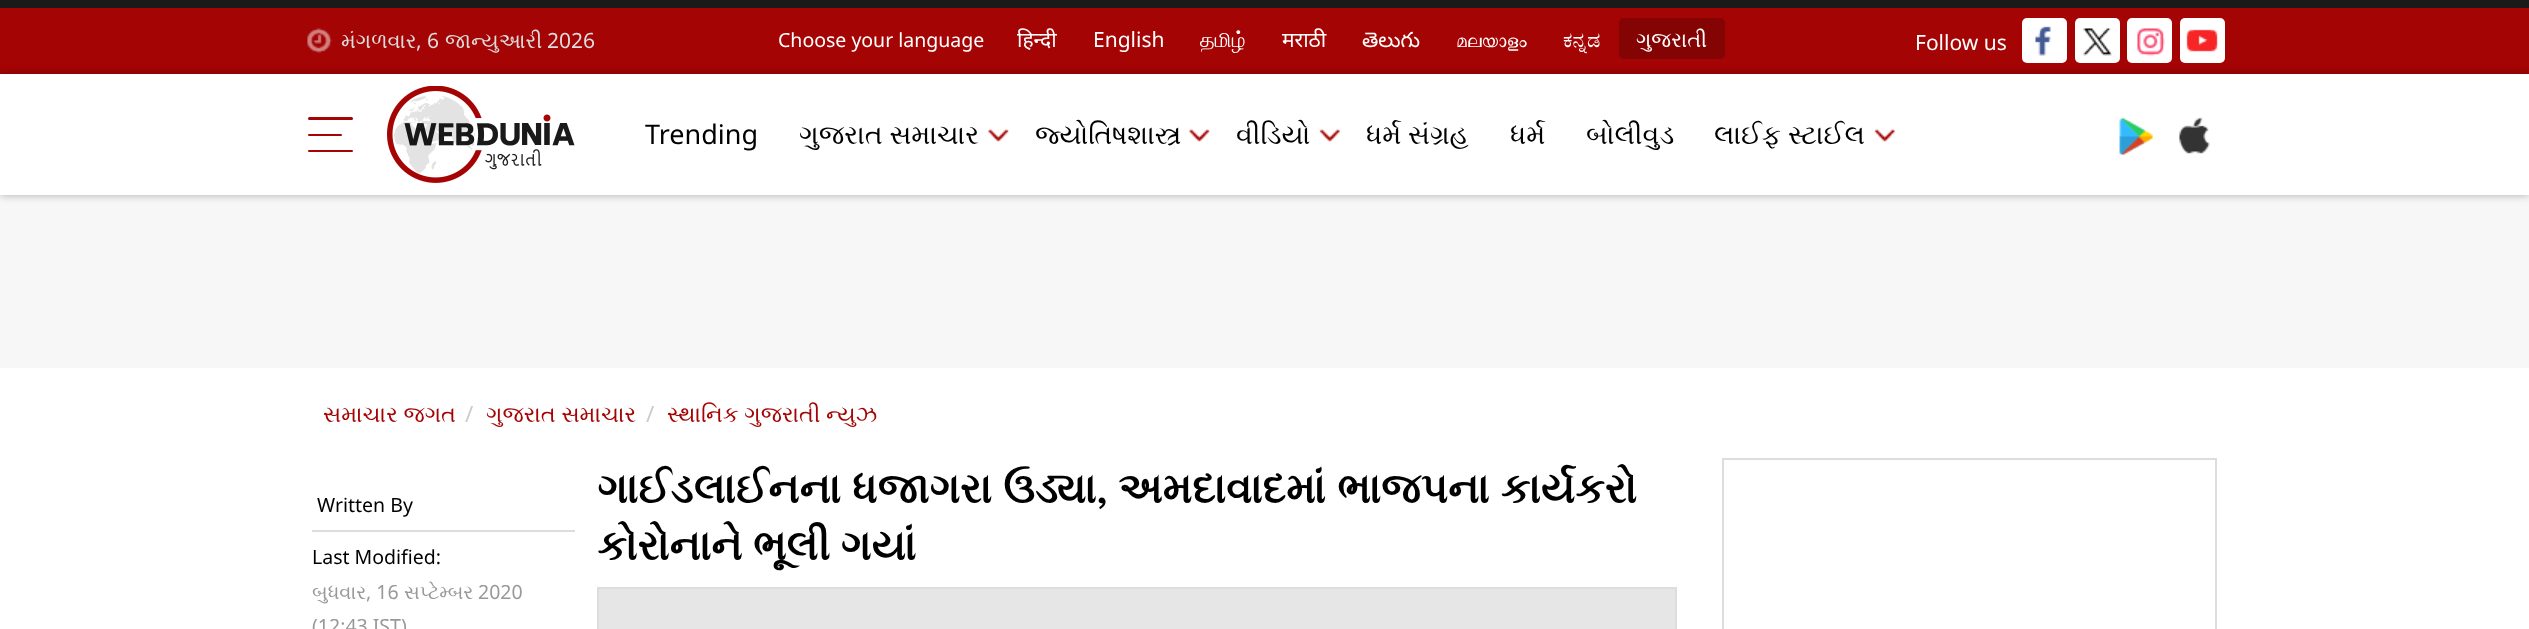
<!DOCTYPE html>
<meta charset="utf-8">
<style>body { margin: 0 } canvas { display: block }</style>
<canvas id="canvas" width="2529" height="629"></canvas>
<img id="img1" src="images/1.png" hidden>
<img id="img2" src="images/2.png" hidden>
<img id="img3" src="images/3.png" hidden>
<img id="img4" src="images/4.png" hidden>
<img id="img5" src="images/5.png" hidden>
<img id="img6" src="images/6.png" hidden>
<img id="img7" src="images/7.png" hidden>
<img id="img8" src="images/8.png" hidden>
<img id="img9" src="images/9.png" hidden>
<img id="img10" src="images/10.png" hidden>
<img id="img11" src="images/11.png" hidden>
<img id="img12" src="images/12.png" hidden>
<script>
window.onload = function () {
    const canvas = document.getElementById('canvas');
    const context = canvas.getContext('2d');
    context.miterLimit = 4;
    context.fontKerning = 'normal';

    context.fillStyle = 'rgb(255, 255, 255)';
    context.fillRect(0, 0, 2529, 629);
    context.fillStyle = 'rgb(165, 4, 4)';
    context.fillRect(0, 8, 2529, 66);
    context.fillStyle = 'rgb(26, 26, 26)';
    context.fillRect(0, 0, 2529, 8);
    context.drawImage(document.getElementById('img1'), 307, 28, 25, 25);
    context.fillStyle = 'rgb(132, 3, 3)';
    context.beginPath();
    context.roundRect(1619, 18, 106, 41, 5);
    context.fill();
    context.fillStyle = 'rgb(255, 255, 255)';
    context.beginPath();
    context.roundRect(2022, 18, 45, 45, 5);
    context.fill();
    context.drawImage(document.getElementById('img2'), 2035, 26, 16, 30);
    context.beginPath();
    context.roundRect(2075, 18, 45, 45, 5);
    context.fill();
    context.drawImage(document.getElementById('img3'), 2083, 28, 29, 28);
    context.beginPath();
    context.roundRect(2127, 18, 45, 45, 5);
    context.fill();
    context.drawImage(document.getElementById('img4'), 2137, 28, 28, 28);
    context.beginPath();
    context.roundRect(2180, 18, 45, 45, 5);
    context.fill();
    context.drawImage(document.getElementById('img5'), 2186, 29, 32, 23);
    context.fillStyle = 'rgb(247, 247, 247)';
    context.fillRect(0, 195, 2529, 173);
    context.save();
    context.beginPath();
    context.moveTo(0, 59);
    context.lineTo(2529, 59);
    context.lineTo(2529, 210);
    context.lineTo(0, 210);
    context.closePath();
    context.moveTo(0, 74);
    context.lineTo(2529, 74);
    context.lineTo(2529, 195);
    context.lineTo(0, 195);
    context.closePath();
    context.clip('evenodd');
    context.fillStyle = 'rgba(0, 0, 0, 0.3)';
    context.filter = 'blur(4.5px)';
    context.beginPath();
    context.rect(0, 74, 2529, 121);
    context.fill();
    context.filter = 'none';
    context.restore();
    context.fillStyle = 'rgb(165, 4, 4)';
    context.beginPath();
    context.roundRect(308, 117, 45, 3, 1.5);
    context.fill();
    context.beginPath();
    context.roundRect(308, 134, 34, 2, 1);
    context.fill();
    context.beginPath();
    context.roundRect(308, 150, 45, 2, 1);
    context.fill();
    context.drawImage(document.getElementById('img6'), 387, 86, 188, 97);
    context.drawImage(document.getElementById('img7'), 988, 128, 21, 14);
    context.drawImage(document.getElementById('img8'), 1189, 128, 21, 14);
    context.drawImage(document.getElementById('img9'), 1319, 128, 21, 14);
    context.drawImage(document.getElementById('img10'), 1874, 128, 21, 14);
    context.drawImage(document.getElementById('img11'), 2119, 118, 34, 37);
    context.drawImage(document.getElementById('img12'), 2179, 117, 31, 37);
    context.fillStyle = 'rgb(221, 221, 221)';
    context.fillRect(312, 530, 263, 2);
    context.fillStyle = 'rgb(230, 230, 230)';
    context.beginPath();
    context.rect(598, 588, 1078, 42);
    context.fill();
    context.strokeStyle = 'rgb(221, 221, 221)';
    context.lineWidth = 2;
    context.stroke();
    context.strokeRect(1723, 459, 493, 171);
    context.font = '21px FreeSerif';
    context.fillStyle = 'rgb(221, 221, 221)';
    context.fillText('મંગળવાર', 341, 48);
    context.font = '21px Noto Sans';
    context.fillText(', 6', 416, 48);
    context.font = '21px FreeSerif';
    context.fillText('જાન્યુઆરી', 445, 48);
    context.font = '21px Noto Sans';
    context.fillText('2026', 547, 48);
    context.font = '19.5px Noto Sans';
    context.fillStyle = 'rgb(255, 255, 255)';
    context.fillText('Choose your language', 778, 47);
    context.font = '21px Noto Sans';
    context.fillText('हिन्दी', 1017, 47);
    context.fillText('English', 1093, 47);
    context.font = '21px FreeSerif';
    context.fillText('தமிழ்', 1200, 47);
    context.font = '21px Noto Sans';
    context.fillText('मराठी', 1282, 47);
    context.font = '21px Noto Sans Telugu';
    context.fillText('తెలుగు', 1362, 47);
    context.font = '21px FreeSerif';
    context.fillText('മലയാളം', 1456, 47);
    context.fillText('ಕನ್ನಡ', 1563, 47);
    context.fillText('ગુજરાતી', 1636, 47);
    context.font = '21px Noto Sans';
    context.fillText('Follow us', 1915, 50);
    context.font = '27px Noto Sans';
    context.fillStyle = 'rgb(0, 0, 0)';
    context.fillText('Trending', 645, 144);
    context.font = '27px FreeSerif';
    context.fillText('ગુજરાત સમાચાર', 799, 144);
    context.fillText('જ્યોતિષશાસ્ત્ર', 1035, 144);
    context.fillText('વીડિયો', 1236, 144);
    context.fillText('ધર્મ સંગ્રહ', 1366, 144);
    context.fillText('ધર્મ', 1510, 144);
    context.fillText('બોલીવુડ', 1586, 144);
    context.fillText('લાઈફ સ્ટાઈલ', 1714, 144);
    context.font = '22.5px FreeSerif';
    context.fillStyle = 'rgb(165, 4, 4)';
    context.fillText('સમાચાર જગત', 323, 422);
    context.font = '22.5px Noto Sans';
    context.fillStyle = 'rgb(204, 204, 204)';
    context.fillText('/', 465, 422);
    context.font = '22.5px FreeSerif';
    context.fillStyle = 'rgb(165, 4, 4)';
    context.fillText('ગુજરાત સમાચાર', 486, 422);
    context.font = '22.5px Noto Sans';
    context.fillStyle = 'rgb(204, 204, 204)';
    context.fillText('/', 646, 422);
    context.font = '22.5px FreeSerif';
    context.fillStyle = 'rgb(165, 4, 4)';
    context.fillText('સ્થાનિક ગુજરાતી ન્યુઝ', 667, 422);
    context.font = '19.5px Noto Sans';
    context.fillStyle = 'rgb(0, 0, 0)';
    context.fillText('Written By', 317, 512);
    context.fillText('Last Modified:', 312, 564);
    context.font = '19.5px FreeSerif';
    context.fillStyle = 'rgb(153, 153, 153)';
    context.fillText('બુધવાર', 312, 599);
    context.font = '19.5px Noto Sans';
    context.fillText(', 16', 366, 599);
    context.font = '19.5px FreeSerif';
    context.fillText('સપ્ટેમ્બર', 404, 599);
    context.font = '19.5px Noto Sans';
    context.fillText('2020', 478, 599);
    context.fillText('(12:43 IST)', 312, 633);
    context.wordSpacing = '0.75px';
    context.font = 'bold 42px FreeSerif';
    context.fillStyle = 'rgb(0, 0, 0)';
    context.fillText('ગાઈડલાઈનના ધજાગરા ઉડ્યા, અમદાવાદમાં ભાજપના કાર્યકરો', 597, 503);
    context.save();
    context.beginPath();
    context.rect(597, 458, 1080, 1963);
    context.clip();
    context.wordSpacing = '0px';
    context.fillText('કોરોનાને ભૂલી ગયાં', 597, 560);
    context.restore();
};
</script>
